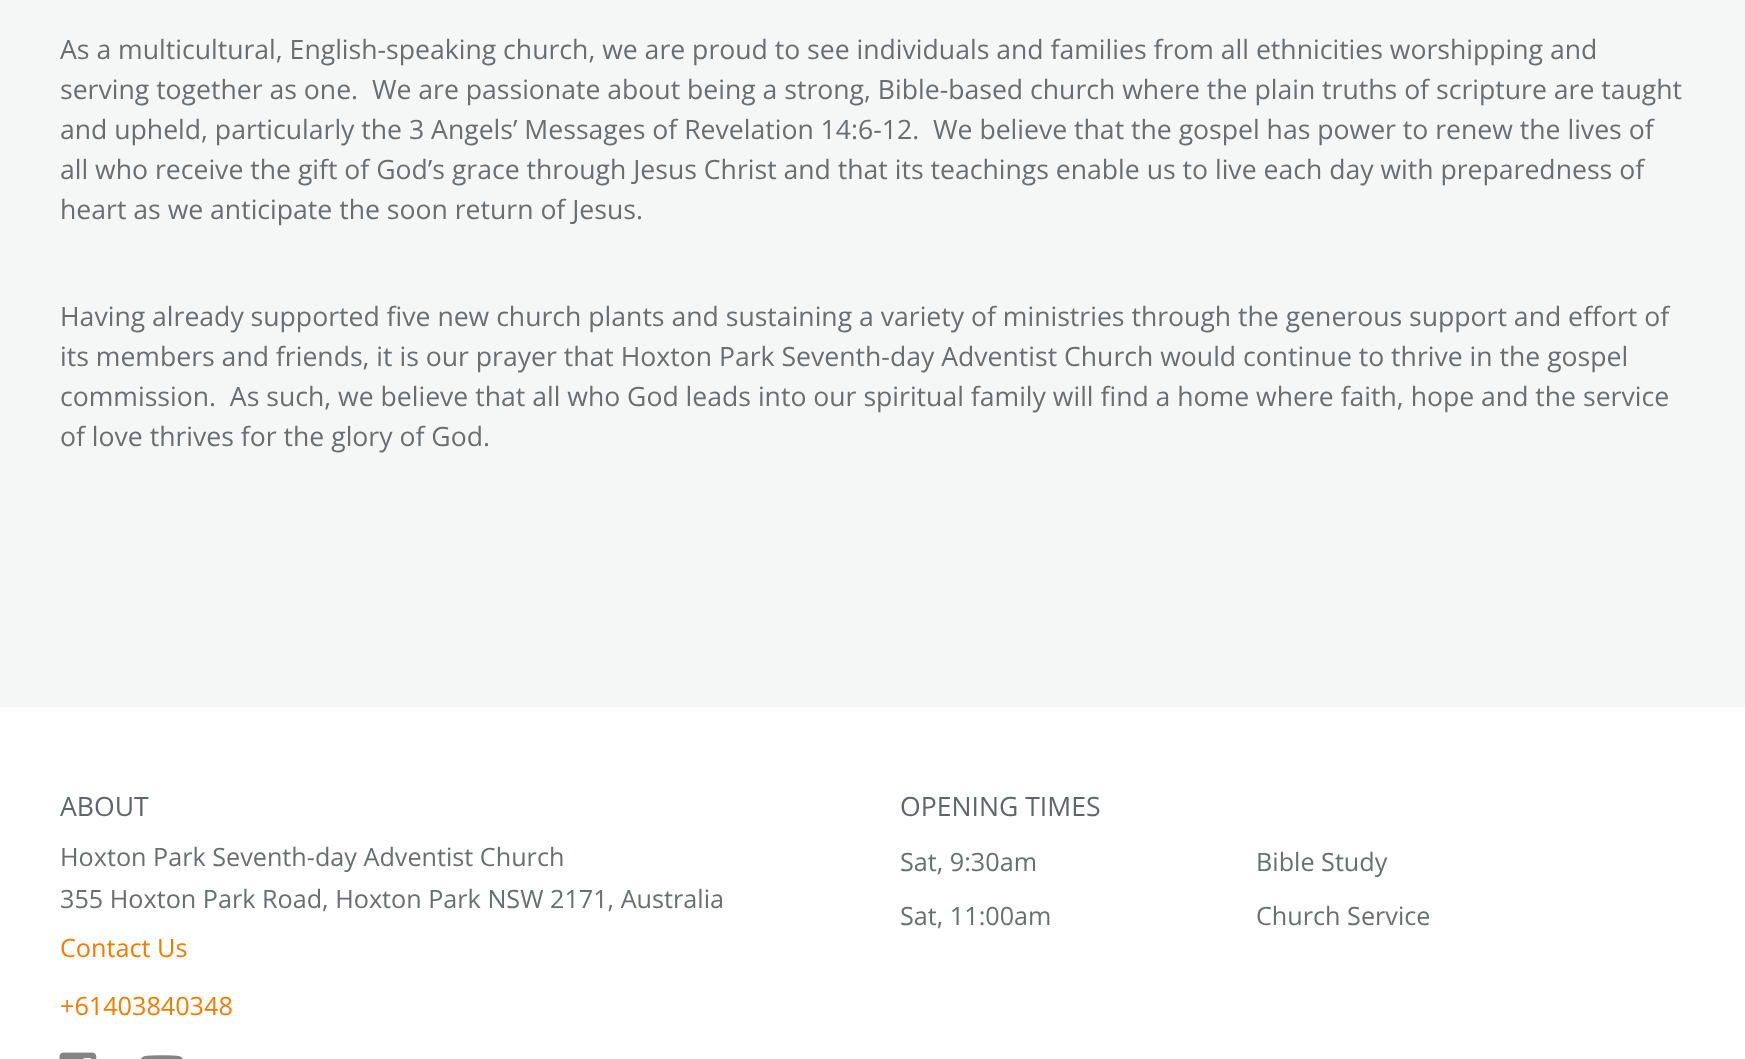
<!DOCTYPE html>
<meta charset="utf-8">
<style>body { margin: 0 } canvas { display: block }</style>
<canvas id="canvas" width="1745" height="1059"></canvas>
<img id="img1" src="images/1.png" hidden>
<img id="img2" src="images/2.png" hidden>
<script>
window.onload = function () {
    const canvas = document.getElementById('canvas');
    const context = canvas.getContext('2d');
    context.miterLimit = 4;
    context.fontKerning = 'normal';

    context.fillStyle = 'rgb(245, 247, 247)';
    context.fillRect(0, 0, 1745, 1059);
    context.fillStyle = 'rgb(255, 255, 255)';
    context.fillRect(0, 707, 1745, 352);
    context.drawImage(document.getElementById('img1'), 59, 1052, 38, 7);
    context.drawImage(document.getElementById('img2'), 141, 1055, 42, 4);
    context.font = '26.6px Open Sans';
    context.fillStyle = 'rgb(106, 110, 111)';
    context.fillText('As a multicultural, English-speaking church, we are proud to see individuals and families from all ethnicities worshipping and', 60, 59);
    context.fillText('serving together as one.  We are passionate about being a strong, Bible-based church where the plain truths of scripture are taught', 60, 99);
    context.fillText('and upheld, particularly the 3 Angels’ Messages of Revelation 14:6-12.  We believe that the gospel has power to renew the lives of', 60, 139);
    context.fillText('all who receive the gift of God’s grace through Jesus Christ and that its teachings enable us to live each day with preparedness of', 60, 179);
    context.fillText('heart as we anticipate the soon return of Jesus.', 60, 219);
    context.fillText('Having already supported five new church plants and sustaining a variety of ministries through the generous support and effort of', 60, 326);
    context.fillText('its members and friends, it is our prayer that Hoxton Park Seventh-day Adventist Church would continue to thrive in the gospel', 60, 366);
    context.fillText('commission.  As such, we believe that all who God leads into our spiritual family will find a home where faith, hope and the service', 60, 406);
    context.fillText('of love thrives for the glory of God.', 60, 446);
    context.fillStyle = 'rgb(95, 102, 103)';
    context.fillText('ABOUT', 60, 816);
    context.font = '25.2px Open Sans';
    context.fillStyle = 'rgb(106, 110, 111)';
    context.fillText('Hoxton Park Seventh-day Adventist Church', 60, 866);
    context.fillText('355 Hoxton Park Road, Hoxton Park NSW 2171, Australia', 60, 908);
    context.fillStyle = 'rgb(240, 125, 0)';
    context.fillText('Contact Us', 60, 957);
    context.fillText('+61403840348', 60, 1015);
    context.font = '26.6px Open Sans';
    context.fillStyle = 'rgb(95, 102, 103)';
    context.fillText('OPENING TIMES', 900, 816);
    context.font = '25.2px Open Sans';
    context.fillStyle = 'rgb(106, 110, 111)';
    context.fillText('Sat, 9:30am', 900, 871);
    context.fillText('Bible Study', 1256, 871);
    context.fillText('Sat, 11:00am', 900, 925);
    context.fillText('Church Service', 1256, 925);
};
</script>
